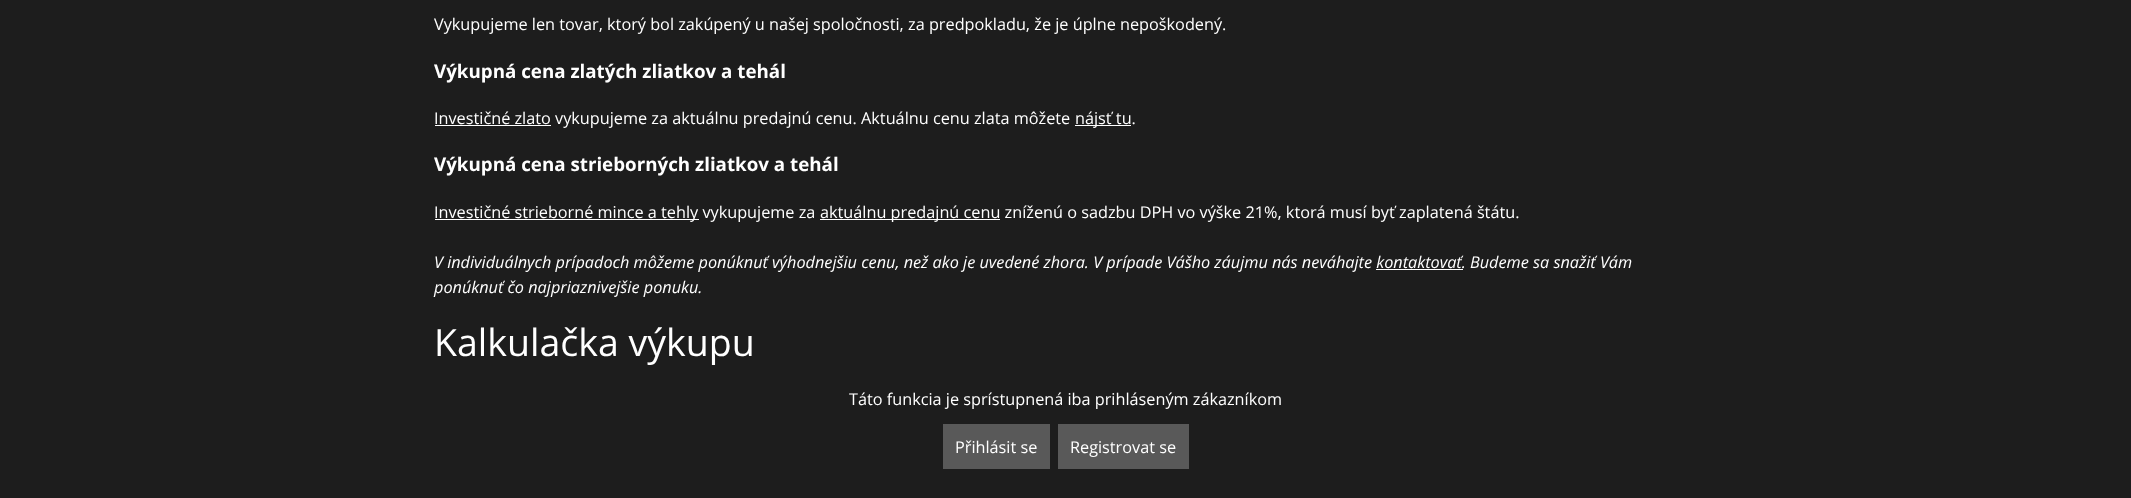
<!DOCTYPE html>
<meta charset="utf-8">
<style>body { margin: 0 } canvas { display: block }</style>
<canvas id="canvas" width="2131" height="498"></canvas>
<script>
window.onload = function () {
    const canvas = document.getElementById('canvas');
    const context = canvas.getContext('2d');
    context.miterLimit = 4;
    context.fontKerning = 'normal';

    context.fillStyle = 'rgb(29, 29, 29)';
    context.fillRect(0, 0, 2131, 498);
    context.fillStyle = 'rgb(255, 255, 255)';
    context.fillRect(435, 125, 116, 1);
    context.fillRect(1075, 125, 56, 1);
    context.fillRect(435, 219, 264, 1);
    context.fillRect(820, 219, 180, 1);
    context.fillRect(1376, 269, 87, 1);
    context.fillStyle = 'rgb(89, 89, 89)';
    context.fillRect(943, 424, 107, 45);
    context.fillRect(1058, 424, 131, 45);
    context.font = '16.25px Open Sans';
    context.fillStyle = 'rgb(255, 255, 255)';
    context.fillText('Vykupujeme len tovar, ktorý bol zakúpený u našej spoločnosti, za predpokladu, že je úplne nepoškodený.', 434, 30);
    context.font = 'bold 18.75px Open Sans';
    context.fillText('Výkupná cena zlatých zliatkov a tehál', 434, 78);
    context.font = '16.25px Open Sans';
    context.fillText('Investičné zlato vykupujeme za aktuálnu predajnú cenu. Aktuálnu cenu zlata môžete', 434, 124);
    context.fillText('nájsť tu.', 1075, 124);
    context.font = 'bold 18.75px Open Sans';
    context.fillText('Výkupná cena strieborných zliatkov a tehál', 434, 171);
    context.font = '16.25px Open Sans';
    context.fillText('Investičné strieborné mince a tehly vykupujeme za', 434, 218);
    context.fillText('aktuálnu predajnú cenu zníženú o sadzbu DPH vo výške 21%, ktorá musí byť zaplatená štátu.', 820, 218);
    context.font = 'italic 16.25px Open Sans';
    context.fillText('V individuálnych prípadoch môžeme ponúknuť výhodnejšiu cenu, než ako je uvedené zhora. V prípade Vášho záujmu nás neváhajte kontaktovať. Budeme sa snažiť Vám', 434, 268);
    context.fillText('ponúknuť čo najpriaznivejšie ponuku.', 434, 293);
    context.font = '37.5px Open Sans';
    context.fillText('Kalkulačka výkupu', 434, 356);
    context.font = '16.25px Open Sans';
    context.fillText('Táto funkcia je sprístupnená iba prihláseným zákazníkom', 849, 405);
    context.fillText('Přihlásit se', 955, 453);
    context.fillText('Registrovat se', 1070, 453);
};
</script>
